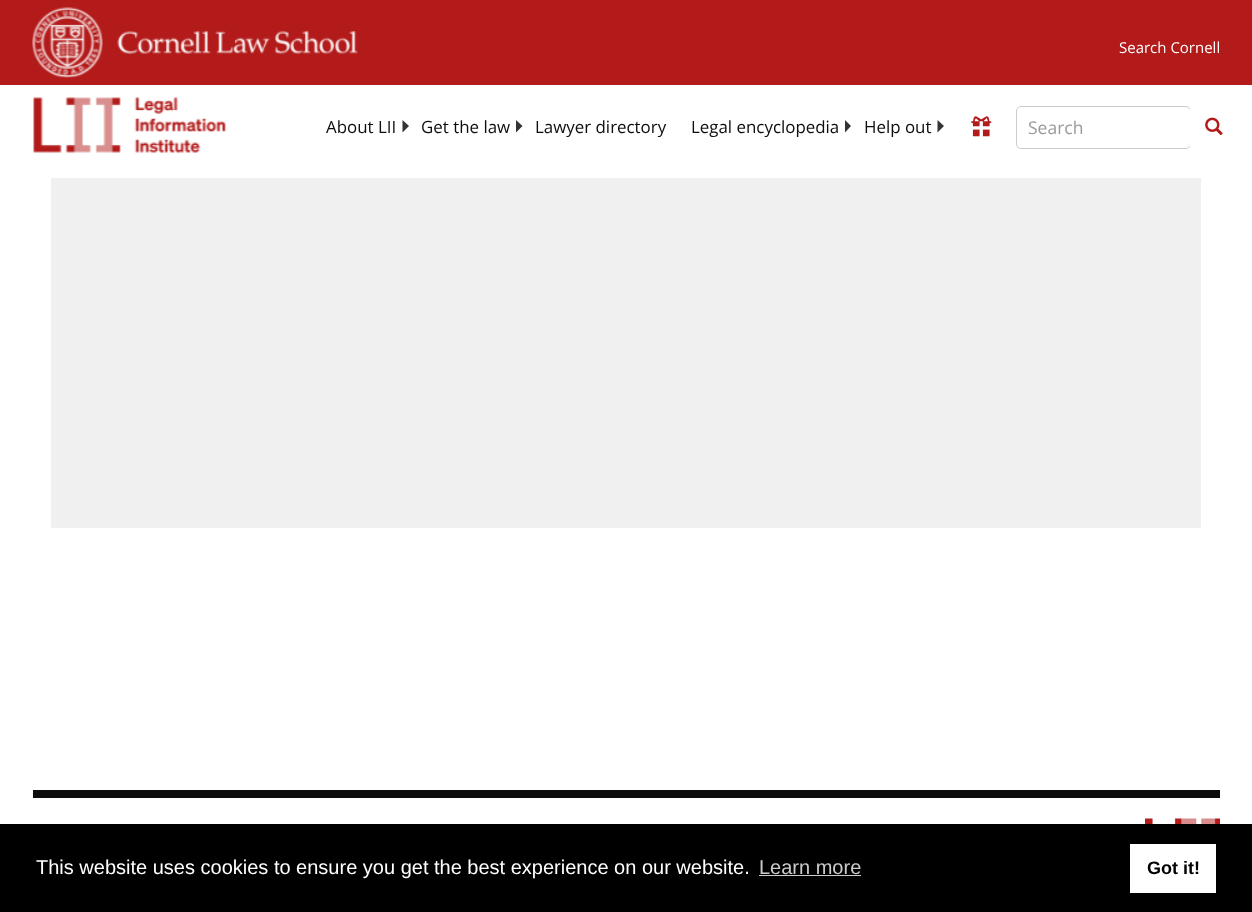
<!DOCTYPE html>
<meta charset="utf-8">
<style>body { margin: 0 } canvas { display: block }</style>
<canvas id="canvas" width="1252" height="912"></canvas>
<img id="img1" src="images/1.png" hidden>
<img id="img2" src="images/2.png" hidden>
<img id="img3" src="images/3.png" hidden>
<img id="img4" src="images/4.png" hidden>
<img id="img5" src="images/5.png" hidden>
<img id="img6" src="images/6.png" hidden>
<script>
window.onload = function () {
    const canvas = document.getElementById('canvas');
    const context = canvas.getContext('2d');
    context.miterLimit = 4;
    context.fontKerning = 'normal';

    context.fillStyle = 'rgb(255, 255, 255)';
    context.fillRect(0, 0, 1252, 912);
    context.fillStyle = 'rgb(179, 27, 27)';
    context.fillRect(0, 0, 1252, 85);
    context.drawImage(document.getElementById('img1'), 32, 7, 71, 71);
    context.drawImage(document.getElementById('img2'), 117, 30, 241, 24);
    context.drawImage(document.getElementById('img3'), 33, 97, 193, 56);
    context.fillStyle = 'rgb(51, 51, 51)';
    context.beginPath();
    context.moveTo(402.5, 132.5);
    context.lineTo(402.5, 120);
    context.lineTo(409, 126);
    context.closePath();
    context.fill();
    context.beginPath();
    context.moveTo(516, 132.5);
    context.lineTo(516, 120);
    context.lineTo(522.5, 126);
    context.closePath();
    context.fill();
    context.beginPath();
    context.moveTo(845, 132.5);
    context.lineTo(845, 120);
    context.lineTo(851, 126);
    context.closePath();
    context.fill();
    context.beginPath();
    context.moveTo(937.5, 132.5);
    context.lineTo(937.5, 120);
    context.lineTo(944, 126);
    context.closePath();
    context.fill();
    context.drawImage(document.getElementById('img4'), 971, 116, 21, 21);
    context.beginPath();
    context.roundRect(1016.5, 106.5, 174, 42, 4.5);
    context.strokeStyle = 'rgb(204, 204, 204)';
    context.stroke();
    context.fillStyle = 'rgb(255, 255, 255)';
    context.beginPath();
    context.roundRect(1190, 108, 48, 40, [0, 5, 5, 0]);
    context.fill();
    context.drawImage(document.getElementById('img5'), 1205, 117, 18, 19);
    context.fillStyle = 'rgb(240, 240, 240)';
    context.fillRect(51, 178, 1150, 350);
    context.fillStyle = 'rgb(14, 13, 14)';
    context.fillRect(33, 790, 1187, 8);
    context.drawImage(document.getElementById('img6'), 1145, 818, 75, 6);
    context.fillStyle = 'rgb(0, 0, 0)';
    context.fillRect(0, 824, 1252, 88);
    context.fillStyle = 'rgb(204, 204, 204)';
    context.fillRect(759, 875, 102, 1);
    context.fillStyle = 'rgb(255, 255, 255)';
    context.fillRect(1130, 844, 86, 49);
    context.font = '15px Open Sans';
    context.fillText('Search Cornell', 1119, 53);
    context.font = '16.9px Open Sans';
    context.fillStyle = 'rgb(14, 13, 14)';
    context.fillText('About LII', 326, 133);
    context.fillText('Get the law', 421, 133);
    context.fillText('Lawyer directory', 535, 133);
    context.fillText('Legal encyclopedia', 691, 133);
    context.fillText('Help out', 864, 133);
    context.font = '17.5px Open Sans';
    context.fillStyle = 'rgb(153, 153, 153)';
    context.fillText('Search', 1028, 134);
    context.font = '20px Liberation Sans';
    context.fillStyle = 'rgb(255, 255, 255)';
    context.fillText('This website uses cookies to ensure you get the best experience on our website.', 36, 874);
    context.fillStyle = 'rgb(204, 204, 204)';
    context.fillText('Learn more', 759, 874);
    context.font = 'bold 18px Liberation Sans';
    context.fillStyle = 'rgb(0, 0, 0)';
    context.fillText('Got it!', 1147, 874);
};
</script>
